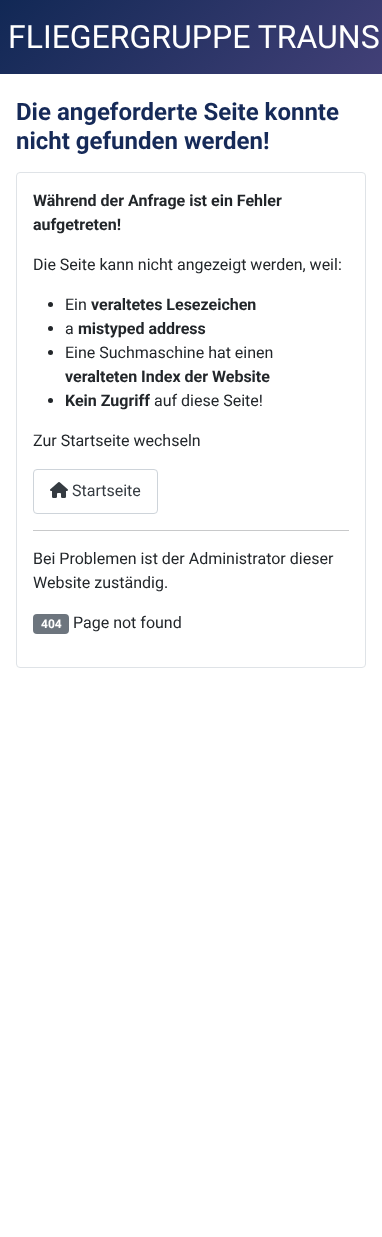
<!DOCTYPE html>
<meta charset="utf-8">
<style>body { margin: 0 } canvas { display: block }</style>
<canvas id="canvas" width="382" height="1237"></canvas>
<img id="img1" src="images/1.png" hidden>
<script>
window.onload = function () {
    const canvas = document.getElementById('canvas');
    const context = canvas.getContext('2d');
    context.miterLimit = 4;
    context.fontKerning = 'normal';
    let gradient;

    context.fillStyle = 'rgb(255, 255, 255)';
    context.fillRect(0, 0, 382, 1237);
    gradient = context.createLinearGradient(77, -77, 305, 151);
    gradient.addColorStop(0, 'rgb(17, 40, 85)');
    gradient.addColorStop(1, 'rgb(66, 64, 119)');
    context.fillStyle = gradient;
    context.fillRect(0, 0, 382, 74);
    context.beginPath();
    context.roundRect(16.5, 172.5, 349, 495, 3.5);
    context.strokeStyle = 'rgb(223, 227, 231)';
    context.stroke();
    context.fillStyle = 'rgb(34, 38, 42)';
    context.beginPath();
    context.arc(50.5, 304.5, 2.5, 0, 2 * Math.PI);
    context.fill();
    context.beginPath();
    context.arc(50.5, 328.5, 2.5, 0, 2 * Math.PI);
    context.fill();
    context.beginPath();
    context.arc(50.5, 352.5, 2.5, 0, 2 * Math.PI);
    context.fill();
    context.beginPath();
    context.arc(50.5, 400.5, 2.5, 0, 2 * Math.PI);
    context.fill();
    context.beginPath();
    context.roundRect(33.5, 469.5, 124, 44, 3.5);
    context.strokeStyle = 'rgb(206, 212, 218)';
    context.stroke();
    context.drawImage(document.getElementById('img1'), 50, 482, 18, 16);
    context.fillStyle = 'rgb(200, 201, 202)';
    context.fillRect(33, 530, 316, 1);
    context.fillStyle = 'rgb(109, 117, 126)';
    context.beginPath();
    context.roundRect(33, 614, 36, 20, 4);
    context.fill();
    context.font = '32px Roboto';
    context.fillStyle = 'rgb(255, 255, 255)';
    context.fillText('FLIEGERGRUPPE TRAUNS', 8, 48);
    context.font = 'bold 24px Roboto';
    context.fillStyle = 'rgb(22, 42, 88)';
    context.fillText('Die angeforderte Seite konnte', 16, 120);
    context.fillText('nicht gefunden werden!', 16, 149);
    context.font = 'bold 16px Roboto';
    context.fillStyle = 'rgb(34, 38, 42)';
    context.fillText('Während der Anfrage ist ein Fehler', 33, 206);
    context.fillText('aufgetreten!', 33, 230);
    context.font = '16px Roboto';
    context.fillText('Die Seite kann nicht angezeigt werden, weil:', 33, 270);
    context.fillText('Ein', 65, 310);
    context.font = 'bold 16px Roboto';
    context.fillText('veraltetes Lesezeichen', 91, 310);
    context.font = '16px Roboto';
    context.fillText('a', 65, 334);
    context.font = 'bold 16px Roboto';
    context.fillText('mistyped address', 78, 334);
    context.font = '16px Roboto';
    context.fillText('Eine Suchmaschine hat einen', 65, 358);
    context.font = 'bold 16px Roboto';
    context.fillText('veralteten Index der Website', 65, 382);
    context.fillText('Kein Zugriff', 65, 406);
    context.font = '16px Roboto';
    context.fillText('auf diese Seite!', 154, 406);
    context.fillText('Zur Startseite wechseln', 33, 446);
    context.fillStyle = 'rgb(53, 59, 65)';
    context.fillText('Startseite', 72, 496);
    context.fillStyle = 'rgb(34, 38, 42)';
    context.fillText('Bei Problemen ist der Administrator dieser', 33, 564);
    context.fillText('Website zuständig.', 33, 588);
    context.font = 'bold 12px Roboto';
    context.fillStyle = 'rgb(255, 255, 255)';
    context.fillText('404', 41, 628);
    context.font = '16px Roboto';
    context.fillStyle = 'rgb(34, 38, 42)';
    context.fillText('Page not found', 73, 628);
};
</script>
